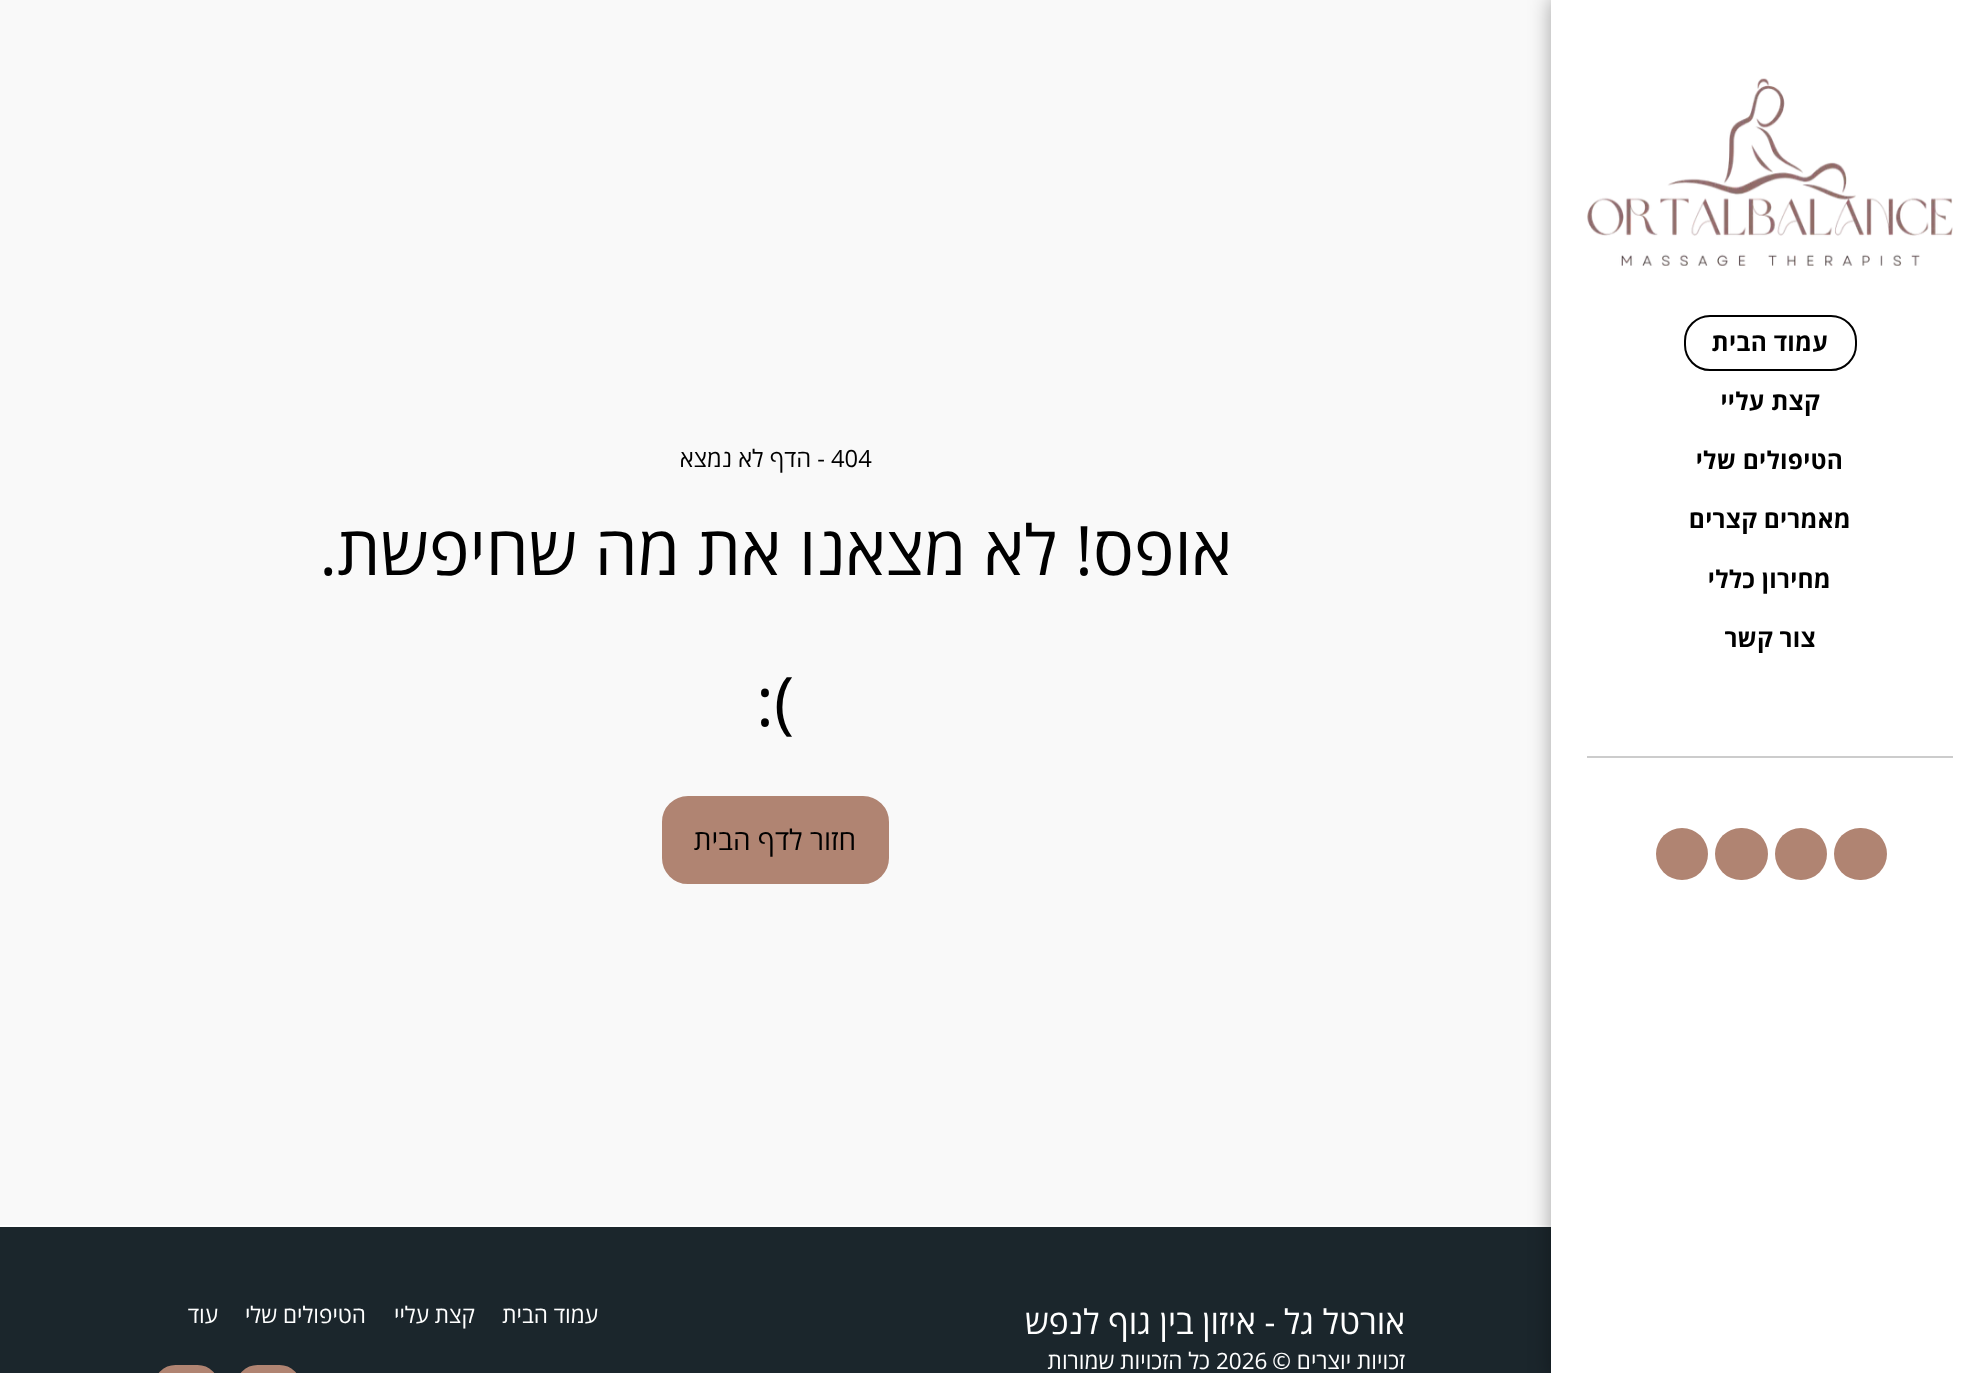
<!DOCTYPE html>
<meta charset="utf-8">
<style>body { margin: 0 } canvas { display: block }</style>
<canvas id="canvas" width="1988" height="1373"></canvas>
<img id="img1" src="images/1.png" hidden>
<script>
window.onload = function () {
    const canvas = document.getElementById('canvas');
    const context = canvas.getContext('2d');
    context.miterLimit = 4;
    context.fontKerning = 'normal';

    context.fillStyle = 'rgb(249, 249, 249)';
    context.fillRect(0, 0, 1988, 1373);
    context.fillStyle = 'rgb(27, 38, 44)';
    context.fillRect(0, 1227, 1551, 146);
    context.fillStyle = 'rgb(255, 255, 255)';
    context.fillRect(0, 1225, 1551, 2);
    context.fillStyle = 'rgba(0, 0, 0, 0.35)';
    context.filter = 'blur(10.5px)';
    context.beginPath();
    context.rect(1551, -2, 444, 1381);
    context.fill();
    context.filter = 'none';
    context.fillStyle = 'rgb(255, 255, 255)';
    context.fillRect(1551, 0, 437, 1373);
    context.drawImage(document.getElementById('img1'), 1587, 78, 366, 188);
    context.beginPath();
    context.roundRect(1685, 316, 171, 54, 25);
    context.strokeStyle = 'rgb(0, 0, 0)';
    context.lineWidth = 2;
    context.stroke();
    context.fillStyle = 'rgb(204, 204, 204)';
    context.fillRect(1587, 756, 366, 2);
    context.fillStyle = 'rgb(176, 132, 114)';
    context.beginPath();
    context.roundRect(1834, 828, 53, 52, 26);
    context.fill();
    context.beginPath();
    context.arc(1801, 854, 26, 0, 2 * Math.PI);
    context.fill();
    context.beginPath();
    context.roundRect(1715, 828, 53, 52, 26);
    context.fill();
    context.beginPath();
    context.arc(1682, 854, 26, 0, 2 * Math.PI);
    context.fill();
    context.beginPath();
    context.roundRect(663, 797, 225, 86, 25);
    context.fill();
    context.strokeStyle = 'rgb(176, 132, 114)';
    context.stroke();
    context.beginPath();
    context.roundRect(237, 1366, 63, 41, 31.5);
    context.fill();
    context.stroke();
    context.beginPath();
    context.roundRect(155, 1366, 63, 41, 31.5);
    context.fill();
    context.stroke();
    context.letterSpacing = '0.25px';
    context.direction = 'rtl';
    context.font = 'bold 24.5px Open Sans';
    context.fillStyle = 'rgb(0, 0, 0)';
    context.fillText('עמוד הבית', 1828, 351);
    context.fillText('קצת עליי', 1820, 410);
    context.fillText('הטיפולים שלי', 1843, 469);
    context.fillText('מאמרים קצרים', 1851, 528);
    context.fillText('מחירון כללי', 1831, 588);
    context.fillText('צור קשר', 1816, 647);
    context.letterSpacing = '0px';
    context.direction = 'ltr';
    context.font = '23.75px Open Sans';
    context.fillText('404', 831, 467);
    context.direction = 'rtl';
    context.fillText('- הדף לא נמצא', 825, 467);
    context.font = '68.3px Open Sans';
    context.fillText('אופס! לא מצאנו את מה שחיפשת.', 1232, 575);
    context.direction = 'ltr';
    context.fillText(':(', 756, 726);
    context.direction = 'rtl';
    context.font = '28px Open Sans';
    context.fillText('חזור לדף הבית', 856, 850);
    context.font = '33.6px Open Sans';
    context.fillStyle = 'rgb(255, 255, 255)';
    context.fillText('אורטל גל - איזון בין גוף לנפש', 1405, 1334);
    context.font = '22.5px Open Sans';
    context.fillText('זכויות יוצרים ©', 1405, 1369);
    context.direction = 'ltr';
    context.fillText('2026', 1216, 1369);
    context.direction = 'rtl';
    context.fillText('כל הזכויות שמורות', 1210, 1369);
    context.fillText('עמוד הבית', 598, 1323);
    context.fillText('קצת עליי', 475, 1323);
    context.fillText('הטיפולים שלי', 366, 1323);
    context.fillText('עוד', 218, 1323);
};
</script>
